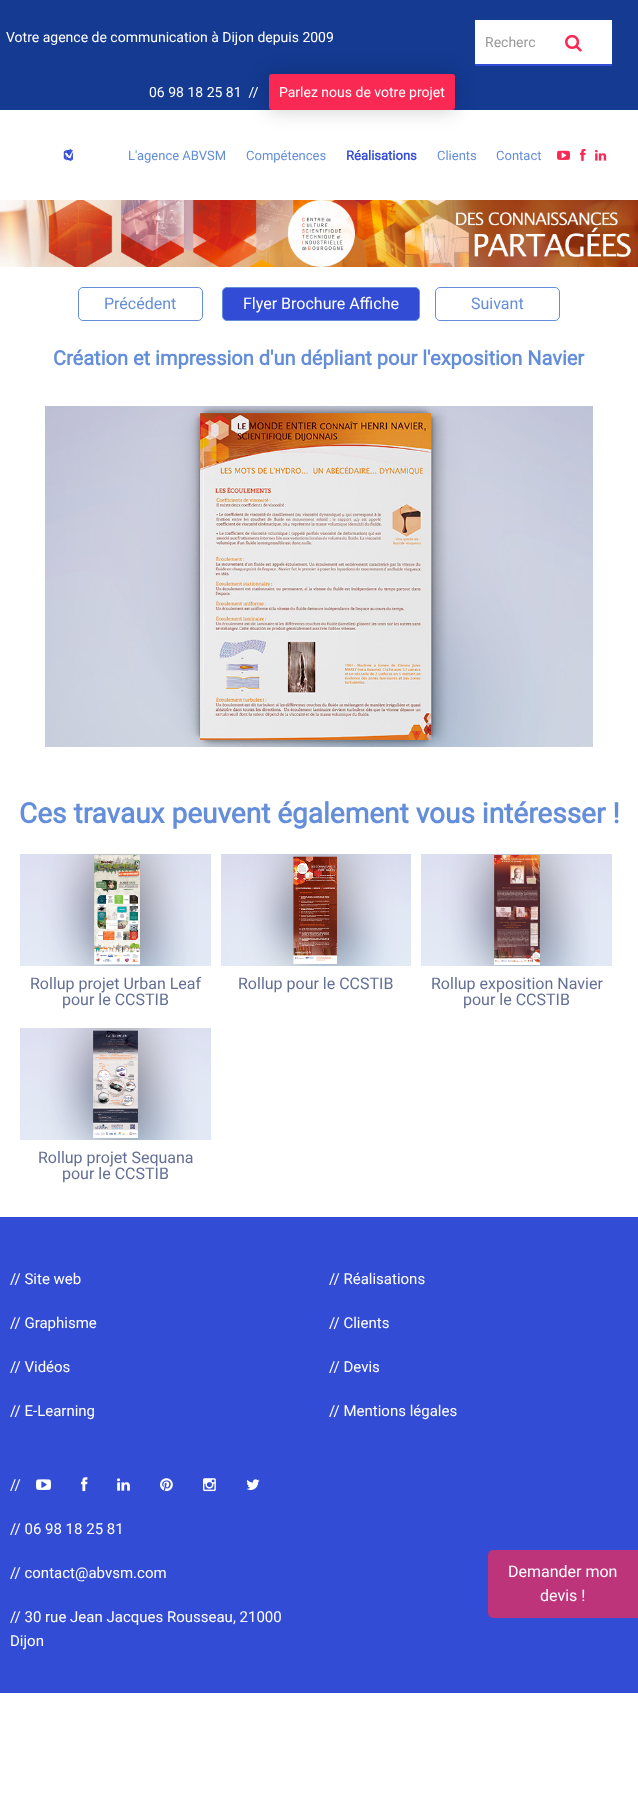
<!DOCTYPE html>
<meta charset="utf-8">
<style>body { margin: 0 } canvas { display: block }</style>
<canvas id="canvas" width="638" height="1798"></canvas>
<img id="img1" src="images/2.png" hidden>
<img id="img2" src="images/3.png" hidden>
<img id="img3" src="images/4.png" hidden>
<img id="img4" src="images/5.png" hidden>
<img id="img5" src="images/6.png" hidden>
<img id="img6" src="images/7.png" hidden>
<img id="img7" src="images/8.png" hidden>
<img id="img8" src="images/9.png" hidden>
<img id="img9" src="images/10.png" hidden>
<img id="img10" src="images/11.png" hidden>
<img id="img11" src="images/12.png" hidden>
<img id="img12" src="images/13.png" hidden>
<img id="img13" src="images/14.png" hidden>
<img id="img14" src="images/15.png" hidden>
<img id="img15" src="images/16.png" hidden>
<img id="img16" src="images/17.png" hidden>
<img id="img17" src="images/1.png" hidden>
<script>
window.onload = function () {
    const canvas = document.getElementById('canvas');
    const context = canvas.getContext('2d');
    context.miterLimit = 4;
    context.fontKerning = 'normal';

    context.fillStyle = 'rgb(255, 255, 255)';
    context.fillRect(0, 0, 638, 1798);
    context.fillStyle = 'rgb(20, 58, 146)';
    context.fillRect(0, 0, 638, 110);
    context.fillStyle = 'rgba(0, 0, 0, 0.2)';
    context.filter = 'blur(10px)';
    context.beginPath();
    context.roundRect(269, 74, 186, 36, 3);
    context.fill();
    context.filter = 'none';
    context.fillStyle = 'rgb(255, 255, 255)';
    context.fillRect(475, 20, 137, 44);
    context.fillStyle = 'rgb(51, 76, 213)';
    context.fillRect(475, 64, 137, 2);
    context.fillStyle = 'rgb(250, 41, 83)';
    context.beginPath();
    context.roundRect(269, 74, 186, 36, 3);
    context.fill();
    context.drawImage(document.getElementById('img1'), 63, 148, 11, 14);
    context.drawImage(document.getElementById('img2'), 557, 150, 13, 10);
    context.drawImage(document.getElementById('img3'), 580, 149, 6, 12);
    context.drawImage(document.getElementById('img4'), 595, 149, 12, 12);
    context.drawImage(document.getElementById('img5'), 0, 200, 638, 67);
    context.beginPath();
    context.roundRect(78.5, 287.5, 124, 33, 4.5);
    context.strokeStyle = 'rgb(100, 142, 217)';
    context.stroke();
    context.fillStyle = 'rgb(51, 76, 213)';
    context.beginPath();
    context.roundRect(222.5, 287.5, 197, 33, 4.5);
    context.fill();
    context.stroke();
    context.beginPath();
    context.roundRect(435.5, 287.5, 124, 33, 4.5);
    context.stroke();
    context.drawImage(document.getElementById('img6'), 45, 406, 548, 341);
    context.drawImage(document.getElementById('img7'), 20, 854, 191, 112);
    context.drawImage(document.getElementById('img8'), 221, 854, 190, 112);
    context.drawImage(document.getElementById('img9'), 421, 854, 191, 112);
    context.drawImage(document.getElementById('img10'), 20, 1028, 191, 112);
    context.fillRect(0, 1217, 638, 476);
    context.drawImage(document.getElementById('img11'), 36, 1479, 15, 11);
    context.drawImage(document.getElementById('img12'), 81, 1477, 7, 15);
    context.drawImage(document.getElementById('img13'), 117, 1478, 13, 13);
    context.drawImage(document.getElementById('img14'), 160, 1478, 13, 14);
    context.drawImage(document.getElementById('img15'), 203, 1478, 13, 14);
    context.drawImage(document.getElementById('img16'), 246, 1479, 14, 11);
    context.fillStyle = 'rgb(190, 52, 122)';
    context.beginPath();
    context.roundRect(488, 1550, 150, 68, [5, 0, 0, 5]);
    context.fill();
    context.font = '14px Roboto';
    context.fillStyle = 'rgb(255, 255, 255)';
    context.fillText('Votre agence de communication à Dijon depuis 2009', 6, 42);
    context.fillStyle = 'rgb(153, 153, 153)';
    context.fillText('Recherc', 485, 47);
    context.fillStyle = 'rgb(255, 255, 255)';
    context.beginPath();
    context.roundRect(535, 20, 77, 44, 5);
    context.fill();
    context.drawImage(document.getElementById('img17'), 565, 34, 17, 18);
    context.fillText('06 98 18 25 81  //', 149, 97);
    context.fillText('Parlez nous de votre projet', 279, 97);
    context.font = '13px Roboto';
    context.fillStyle = 'rgb(100, 142, 217)';
    context.fillText('L\'agence ABVSM', 128, 160);
    context.fillText('Compétences', 246, 160);
    context.font = 'bold 13px Roboto';
    context.fillStyle = 'rgb(51, 76, 213)';
    context.fillText('Réalisations', 346, 160);
    context.font = '13px Roboto';
    context.fillStyle = 'rgb(100, 142, 217)';
    context.fillText('Clients', 437, 160);
    context.fillText('Contact', 496, 160);
    context.font = '16px Roboto';
    context.fillText('Précédent', 104, 309);
    context.fillStyle = 'rgb(255, 255, 255)';
    context.fillText('Flyer Brochure Affiche', 243, 309);
    context.fillStyle = 'rgb(100, 142, 217)';
    context.fillText('Suivant', 471, 309);
    context.font = 'bold 20px Roboto';
    context.fillText('Création et impression d\'un dépliant pour l\'exposition Navier', 53, 365);
    context.font = 'bold 28px Roboto';
    context.fillText('Ces travaux peuvent également vous intéresser !', 19, 823);
    context.font = '16px Roboto';
    context.fillStyle = 'rgb(100, 111, 149)';
    context.fillText('Rollup projet Urban Leaf', 30, 989);
    context.fillText('pour le CCSTIB', 62, 1005);
    context.fillText('Rollup pour le CCSTIB', 238, 989);
    context.fillText('Rollup exposition Navier', 431, 989);
    context.fillText('pour le CCSTIB', 463, 1005);
    context.fillText('Rollup projet Sequana', 38, 1163);
    context.fillText('pour le CCSTIB', 62, 1179);
    context.font = '15px Roboto';
    context.fillStyle = 'rgb(255, 255, 255)';
    context.fillText('// Site web', 10, 1284);
    context.fillText('// Graphisme', 10, 1328);
    context.fillText('// Vidéos', 10, 1372);
    context.fillText('// E-Learning', 10, 1416);
    context.fillText('// Réalisations', 329, 1284);
    context.fillText('// Clients', 329, 1328);
    context.fillText('// Devis', 329, 1372);
    context.fillText('// Mentions légales', 329, 1416);
    context.fillText('//', 10, 1490);
    context.fillText('// 06 98 18 25 81', 10, 1534);
    context.fillText('// contact@abvsm.com', 10, 1578);
    context.fillText('// 30 rue Jean Jacques Rousseau, 21000', 10, 1622);
    context.fillText('Dijon', 10, 1646);
    context.font = '16px Roboto';
    context.fillText('Demander mon', 508, 1577);
    context.fillText('devis !', 540, 1601);
};
</script>
